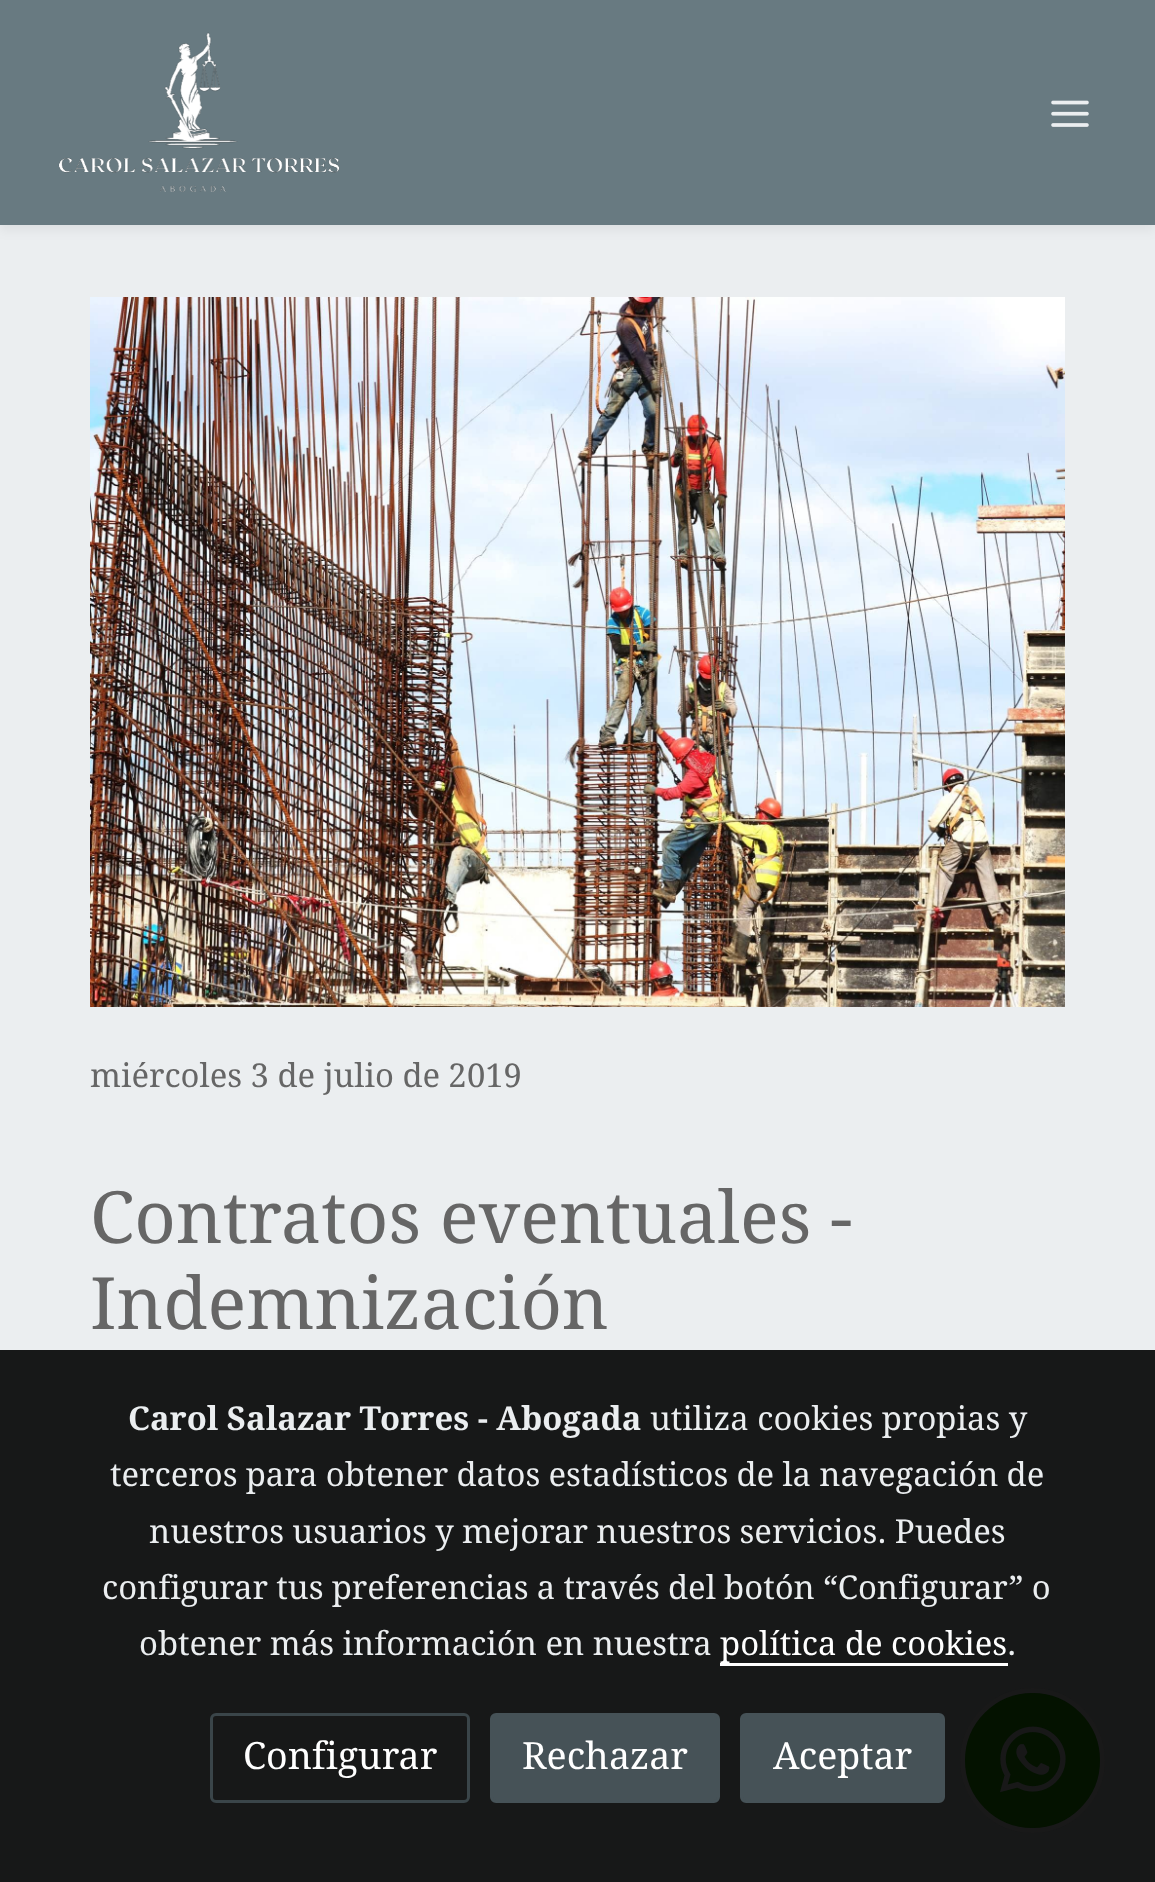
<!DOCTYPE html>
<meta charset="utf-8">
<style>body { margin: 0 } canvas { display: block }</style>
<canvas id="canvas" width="1155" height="1882"></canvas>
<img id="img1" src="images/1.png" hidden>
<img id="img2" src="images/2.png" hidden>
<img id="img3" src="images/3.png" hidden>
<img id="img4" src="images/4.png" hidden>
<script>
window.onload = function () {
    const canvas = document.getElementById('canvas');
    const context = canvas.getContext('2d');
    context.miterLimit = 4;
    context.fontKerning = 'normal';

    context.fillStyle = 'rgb(235, 238, 240)';
    context.fillRect(0, 0, 1155, 1882);
    context.fillStyle = 'rgba(0, 0, 0, 0.06)';
    context.filter = 'blur(6px)';
    context.beginPath();
    context.rect(0, 5, 1155, 225);
    context.fill();
    context.filter = 'none';
    context.fillStyle = 'rgb(104, 122, 129)';
    context.fillRect(0, 0, 1155, 225);
    context.drawImage(document.getElementById('img1'), 58, 32, 282, 160);
    context.drawImage(document.getElementById('img2'), 1051, 100, 38, 27);
    context.drawImage(document.getElementById('img3'), 90, 297, 975, 710);
    context.fillStyle = 'rgb(23, 24, 24)';
    context.fillRect(0, 1350, 1155, 532);
    context.fillStyle = 'rgb(255, 255, 255)';
    context.fillRect(720, 1663, 288, 3);
    context.beginPath();
    context.roundRect(211.5, 1714.5, 257, 87, 4.5);
    context.strokeStyle = 'rgb(58, 69, 73)';
    context.lineWidth = 3;
    context.stroke();
    context.fillStyle = 'rgb(70, 82, 87)';
    context.beginPath();
    context.roundRect(491.5, 1714.5, 227, 87, 4.5);
    context.fill();
    context.strokeStyle = 'rgb(70, 82, 87)';
    context.stroke();
    context.beginPath();
    context.roundRect(741.5, 1714.5, 202, 87, 4.5);
    context.fill();
    context.stroke();
    context.fillStyle = 'rgb(4, 18, 0)';
    context.beginPath();
    context.arc(1032.5, 1760.5, 70, 0, 2 * Math.PI);
    context.fill();
    context.strokeStyle = 'rgb(25, 25, 25)';
    context.lineWidth = 5;
    context.stroke();
    context.drawImage(document.getElementById('img4'), 1000, 1726, 66, 67);
    context.font = '32.8px Droid Serif';
    context.fillStyle = 'rgb(102, 102, 102)';
    context.fillText('miércoles 3 de julio de 2019', 90, 1087);
    context.font = '72.25px Droid Serif';
    context.fillText('Contratos eventuales -', 90, 1243);
    context.fillText('Indemnización', 90, 1329);
    context.font = 'bold 32.8px Droid Serif';
    context.fillStyle = 'rgb(235, 238, 240)';
    context.fillText('Carol Salazar Torres - Abogada', 128, 1430);
    context.font = '32.8px Droid Serif';
    context.fillText('utiliza cookies propias y', 650, 1430);
    context.wordSpacing = '-0.25px';
    context.fillText('terceros para obtener datos estadísticos de la navegación de', 110, 1486);
    context.fillText('nuestros usuarios y mejorar nuestros servicios. Puedes', 149, 1543);
    context.fillText('configurar tus preferencias a través del botón “Configurar” o', 102, 1599);
    context.wordSpacing = '0px';
    context.fillText('obtener más información en nuestra', 139, 1655);
    context.fillStyle = 'rgb(255, 255, 255)';
    context.fillText('política de cookies', 720, 1655);
    context.fillStyle = 'rgb(235, 238, 240)';
    context.fillText('.', 1007, 1655);
    context.font = '37.5px Droid Serif';
    context.fillStyle = 'rgb(255, 255, 255)';
    context.fillText('Configurar', 243, 1769);
    context.fillText('Rechazar', 522, 1769);
    context.fillText('Aceptar', 773, 1769);
};
</script>
